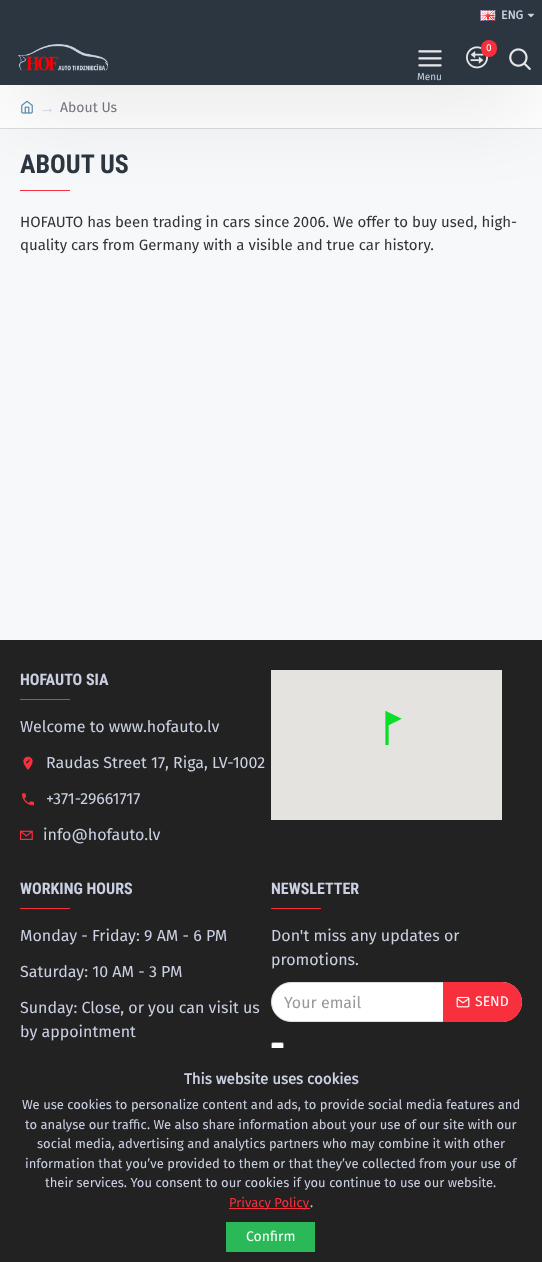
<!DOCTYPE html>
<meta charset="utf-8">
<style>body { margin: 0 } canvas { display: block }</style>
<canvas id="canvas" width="542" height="1262"></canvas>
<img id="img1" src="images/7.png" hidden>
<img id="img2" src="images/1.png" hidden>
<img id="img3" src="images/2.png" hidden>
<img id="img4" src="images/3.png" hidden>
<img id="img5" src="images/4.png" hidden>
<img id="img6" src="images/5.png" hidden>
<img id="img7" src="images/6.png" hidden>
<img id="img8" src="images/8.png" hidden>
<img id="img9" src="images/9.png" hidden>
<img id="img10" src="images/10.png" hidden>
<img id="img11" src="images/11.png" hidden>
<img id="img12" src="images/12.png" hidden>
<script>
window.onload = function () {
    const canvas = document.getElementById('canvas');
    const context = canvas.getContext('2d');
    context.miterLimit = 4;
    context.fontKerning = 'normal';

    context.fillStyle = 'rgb(247, 248, 250)';
    context.fillRect(0, 0, 542, 1262);
    context.fillStyle = 'rgb(255, 255, 255)';
    context.fillRect(0, 85, 542, 43);
    context.fillStyle = 'rgb(221, 221, 221)';
    context.fillRect(0, 128, 542, 1);
    context.drawImage(document.getElementById('img1'), 21, 100, 12, 14);
    context.fillStyle = 'rgb(248, 48, 61)';
    context.fillRect(20, 190, 50, 1);
    context.fillStyle = 'rgba(0, 0, 0, 0.2)';
    context.filter = 'blur(45px)';
    context.beginPath();
    context.rect(10, 55, 522, 35);
    context.fill();
    context.filter = 'none';
    context.fillStyle = 'rgb(44, 54, 64)';
    context.fillRect(0, 0, 542, 85);
    context.drawImage(document.getElementById('img2'), 480, 10, 16, 11);
    context.drawImage(document.getElementById('img3'), 527, 13, 7, 5);
    context.drawImage(document.getElementById('img4'), 18, 44, 90, 27);
    context.drawImage(document.getElementById('img5'), 466, 46, 22, 23);
    context.fillStyle = 'rgb(248, 48, 61)';
    context.beginPath();
    context.roundRect(481, 40, 16, 17, 8);
    context.fill();
    context.drawImage(document.getElementById('img6'), 509, 48, 22, 22);
    context.drawImage(document.getElementById('img7'), 418, 50, 24, 17);
    context.fillStyle = 'rgb(34, 34, 34)';
    context.fillRect(0, 640, 542, 408);
    context.fillStyle = 'rgb(248, 48, 61)';
    context.fillRect(20, 699, 50, 1);
    context.drawImage(document.getElementById('img8'), 23, 756, 10, 14);
    context.drawImage(document.getElementById('img9'), 22, 793, 12, 13);
    context.drawImage(document.getElementById('img10'), 20, 830, 13, 10);
    context.drawImage(document.getElementById('img11'), 271, 670, 231, 150);
    context.fillRect(20, 908, 50, 1);
    context.fillRect(271, 908, 50, 1);
    context.fillStyle = 'rgb(255, 255, 255)';
    context.beginPath();
    context.roundRect(271.5, 982.5, 250, 39, 19.5);
    context.fill();
    context.strokeStyle = 'rgb(221, 221, 221)';
    context.stroke();
    context.fillStyle = 'rgb(248, 48, 61)';
    context.beginPath();
    context.roundRect(443, 982, 79, 40, [0, 20, 20, 0]);
    context.fill();
    context.drawImage(document.getElementById('img12'), 456, 996, 14, 12);
    context.fillStyle = 'rgb(255, 255, 255)';
    context.beginPath();
    context.roundRect(271.5, 1042.5, 12, 12, 1.5);
    context.fill();
    context.strokeStyle = 'rgb(118, 118, 118)';
    context.stroke();
    context.fillStyle = 'rgb(34, 34, 34)';
    context.fillRect(0, 1048, 542, 214);
    context.fillStyle = 'rgb(248, 48, 61)';
    context.fillRect(229, 1208, 81, 1);
    context.fillStyle = 'rgb(42, 184, 88)';
    context.fillRect(226, 1222, 89, 30);
    context.font = 'bold 12px Fira Sans';
    context.fillStyle = 'rgb(203, 209, 227)';
    context.fillText('ENG', 501, 19);
    context.font = '10px Fira Sans';
    context.fillStyle = 'rgb(255, 255, 255)';
    context.fillText('0', 486, 51);
    context.fillStyle = 'rgb(203, 209, 227)';
    context.fillText('Menu', 417, 80);
    context.font = '16px Liberation Serif';
    context.fillText('→', 39, 113);
    context.font = '14px Fira Sans';
    context.fillStyle = 'rgb(115, 115, 129)';
    context.fillText('About Us', 60, 112);
    context.font = 'bold 26px Roboto Condensed';
    context.fillStyle = 'rgb(44, 54, 64)';
    context.fillText('ABOUT US', 20, 173);
    context.font = '15px Fira Sans';
    context.fillStyle = 'rgb(51, 51, 51)';
    context.fillText('HOFAUTO has been trading in cars since 2006. We offer to buy used, high-', 20, 227);
    context.fillText('quality cars from Germany with a visible and true car history.', 20, 250);
    context.font = 'bold 16px Roboto Condensed';
    context.fillStyle = 'rgb(203, 209, 227)';
    context.fillText('HOFAUTO SIA', 20, 685);
    context.font = '16px Fira Sans';
    context.fillText('Welcome to www.hofauto.lv', 20, 732);
    context.fillText('Raudas Street 17, Riga, LV-1002', 46, 768);
    context.fillText('+371-29661717', 46, 804);
    context.fillText('info@hofauto.lv', 43, 840);
    context.font = 'bold 16px Roboto Condensed';
    context.fillText('WORKING HOURS', 20, 894);
    context.font = '16px Fira Sans';
    context.fillText('Monday - Friday: 9 AM - 6 PM', 20, 941);
    context.fillText('Saturday: 10 AM - 3 PM', 20, 977);
    context.fillText('Sunday: Close, or you can visit us', 20, 1013);
    context.fillText('by appointment', 20, 1037);
    context.font = 'bold 16px Roboto Condensed';
    context.fillText('NEWSLETTER', 271, 894);
    context.font = '16px Fira Sans';
    context.fillText('Don\'t miss any updates or', 271, 941);
    context.fillText('promotions.', 271, 965);
    context.fillStyle = 'rgb(153, 153, 153)';
    context.fillText('Your email', 284, 1008);
    context.font = '14px Fira Sans';
    context.fillStyle = 'rgb(255, 255, 255)';
    context.fillText('SEND', 475, 1006);
    context.font = 'bold 15px Fira Sans';
    context.fillStyle = 'rgb(203, 209, 227)';
    context.fillText('This website uses cookies', 184, 1084);
    context.font = '13px Fira Sans';
    context.fillText('We use cookies to personalize content and ads, to provide social media features and', 22, 1109);
    context.fillText('to analyse our traffic. We also share information about your use of our site with our', 25, 1129);
    context.fillText('social media, advertising and analytics partners who may combine it with other', 37, 1148);
    context.fillText('information that you’ve provided to them or that they’ve collected from your use of', 25, 1168);
    context.fillText('their services. You consent to our cookies if you continue to use our website.', 45, 1187);
    context.fillStyle = 'rgb(248, 48, 61)';
    context.fillText('Privacy Policy', 229, 1207);
    context.fillStyle = 'rgb(203, 209, 227)';
    context.fillText('.', 310, 1207);
    context.font = '14px Fira Sans';
    context.fillStyle = 'rgb(255, 255, 255)';
    context.fillText('Confirm', 246, 1241);
};
</script>
